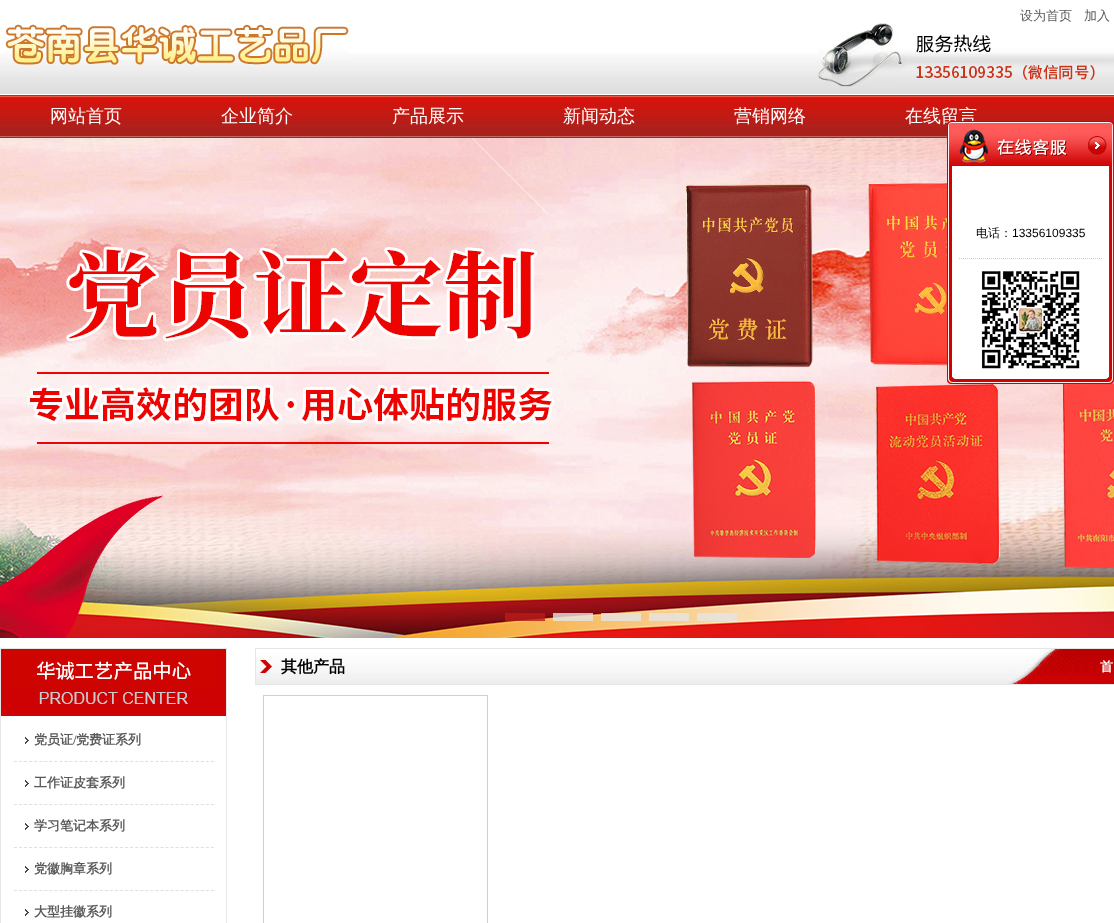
<!DOCTYPE html>
<meta charset="utf-8">
<style>body { margin: 0 } canvas { display: block }</style>
<canvas id="canvas" width="1114" height="923"></canvas>
<img id="img1" src="images/1.png" hidden>
<img id="img2" src="images/2.png" hidden>
<img id="img3" src="images/3.png" hidden>
<img id="img4" src="images/4.png" hidden>
<img id="img5" src="images/7.png" hidden>
<img id="img6" src="images/8.png" hidden>
<img id="img7" src="images/9.png" hidden>
<img id="img8" src="images/10.png" hidden>
<img id="img9" src="images/11.png" hidden>
<img id="img10" src="images/12.png" hidden>
<img id="img11" src="images/5.png" hidden>
<img id="img12" src="images/6.png" hidden>
<script>
window.onload = function () {
    const canvas = document.getElementById('canvas');
    const context = canvas.getContext('2d');
    context.miterLimit = 4;
    context.fontKerning = 'normal';

    context.fillStyle = 'rgb(255, 255, 255)';
    context.fillRect(0, 0, 1114, 923);
    context.drawImage(document.getElementById('img1'), 0, 53, 1114, 85);
    context.drawImage(document.getElementById('img2'), 818, 23, 296, 64);
    context.drawImage(document.getElementById('img3'), 5, 24, 344, 42);
    context.drawImage(document.getElementById('img4'), 0, 138, 1114, 500);
    context.fillStyle = 'rgba(182, 29, 24, 0.8)';
    context.fillRect(505, 613, 40, 8);
    context.fillStyle = 'rgba(229, 229, 229, 0.8)';
    context.fillRect(553, 613, 40, 8);
    context.fillRect(601, 613, 40, 8);
    context.fillRect(649, 613, 40, 8);
    context.fillRect(697, 613, 40, 8);
    context.drawImage(document.getElementById('img5'), 947, 166, 167, 211);
    context.beginPath();
    context.moveTo(959, 258.5);
    context.lineTo(1102, 258.5);
    context.strokeStyle = 'rgb(204, 204, 204)';
    context.setLineDash([1, 1]);
    context.stroke();
    context.drawImage(document.getElementById('img6'), 981, 270, 99, 99);
    context.drawImage(document.getElementById('img7'), 947, 377, 167, 7);
    context.drawImage(document.getElementById('img8'), 256, 649, 858, 35);
    context.strokeStyle = 'rgb(230, 230, 230)';
    context.setLineDash([]);
    context.strokeRect(255.5, 648.5, 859, 36);
    context.strokeStyle = 'rgb(207, 207, 207)';
    context.strokeRect(263.5, 695.5, 224, 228);
    context.drawImage(document.getElementById('img9'), 1, 649, 225, 68);
    context.strokeStyle = 'rgb(230, 230, 230)';
    context.strokeRect(0.5, 648.5, 226, 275);
    context.drawImage(document.getElementById('img10'), 25, 737, 4, 7);
    context.beginPath();
    context.moveTo(14, 761.5);
    context.lineTo(214, 761.5);
    context.strokeStyle = 'rgb(223, 223, 223)';
    context.setLineDash([3, 2.05]);
    context.stroke();
    context.drawImage(document.getElementById('img10'), 25, 780, 4, 7);
    context.beginPath();
    context.moveTo(14, 804.5);
    context.lineTo(214, 804.5);
    context.stroke();
    context.drawImage(document.getElementById('img10'), 25, 823, 4, 7);
    context.beginPath();
    context.moveTo(14, 847.5);
    context.lineTo(214, 847.5);
    context.stroke();
    context.drawImage(document.getElementById('img10'), 25, 866, 4, 7);
    context.beginPath();
    context.moveTo(14, 890.5);
    context.lineTo(214, 890.5);
    context.stroke();
    context.drawImage(document.getElementById('img10'), 25, 909, 4, 7);
    context.font = '500 13px WenQuanYi Zen Hei';
    context.fillStyle = 'rgb(90, 90, 90)';
    context.fillText('设为首页', 1020, 20);
    context.fillText('加入', 1084, 20);
    context.font = '500 18px WenQuanYi Zen Hei';
    context.fillStyle = 'rgb(255, 255, 255)';
    context.fillText('网站首页', 50, 122);
    context.fillText('企业简介', 221, 122);
    context.fillText('产品展示', 392, 122);
    context.fillText('新闻动态', 563, 122);
    context.fillText('营销网络', 734, 122);
    context.fillText('在线留言', 905, 122);
    context.drawImage(document.getElementById('img11'), 947, 121, 167, 45);
    context.drawImage(document.getElementById('img12'), 1088, 136, 19, 19);
    context.font = '500 12px WenQuanYi Zen Hei';
    context.fillStyle = 'rgb(0, 0, 0)';
    context.fillText('电话：', 976, 237);
    context.font = '12px Liberation Sans';
    context.fillText('13356109335', 1012, 237);
    context.font = 'bold 16px WenQuanYi Zen Hei';
    context.fillText('其他产品', 281, 672);
    context.font = 'bold 13px WenQuanYi Zen Hei';
    context.fillStyle = 'rgb(255, 255, 255)';
    context.fillText('首', 1100, 671);
    context.fillStyle = 'rgb(90, 90, 90)';
    context.fillText('党员证', 34, 744);
    context.font = 'bold 13px Liberation Serif';
    context.fillText('/', 73, 744);
    context.font = 'bold 13px WenQuanYi Zen Hei';
    context.fillText('党费证系列', 76, 744);
    context.fillText('工作证皮套系列', 34, 787);
    context.fillText('学习笔记本系列', 34, 830);
    context.fillText('党徽胸章系列', 34, 873);
    context.fillText('大型挂徽系列', 34, 916);
};
</script>
